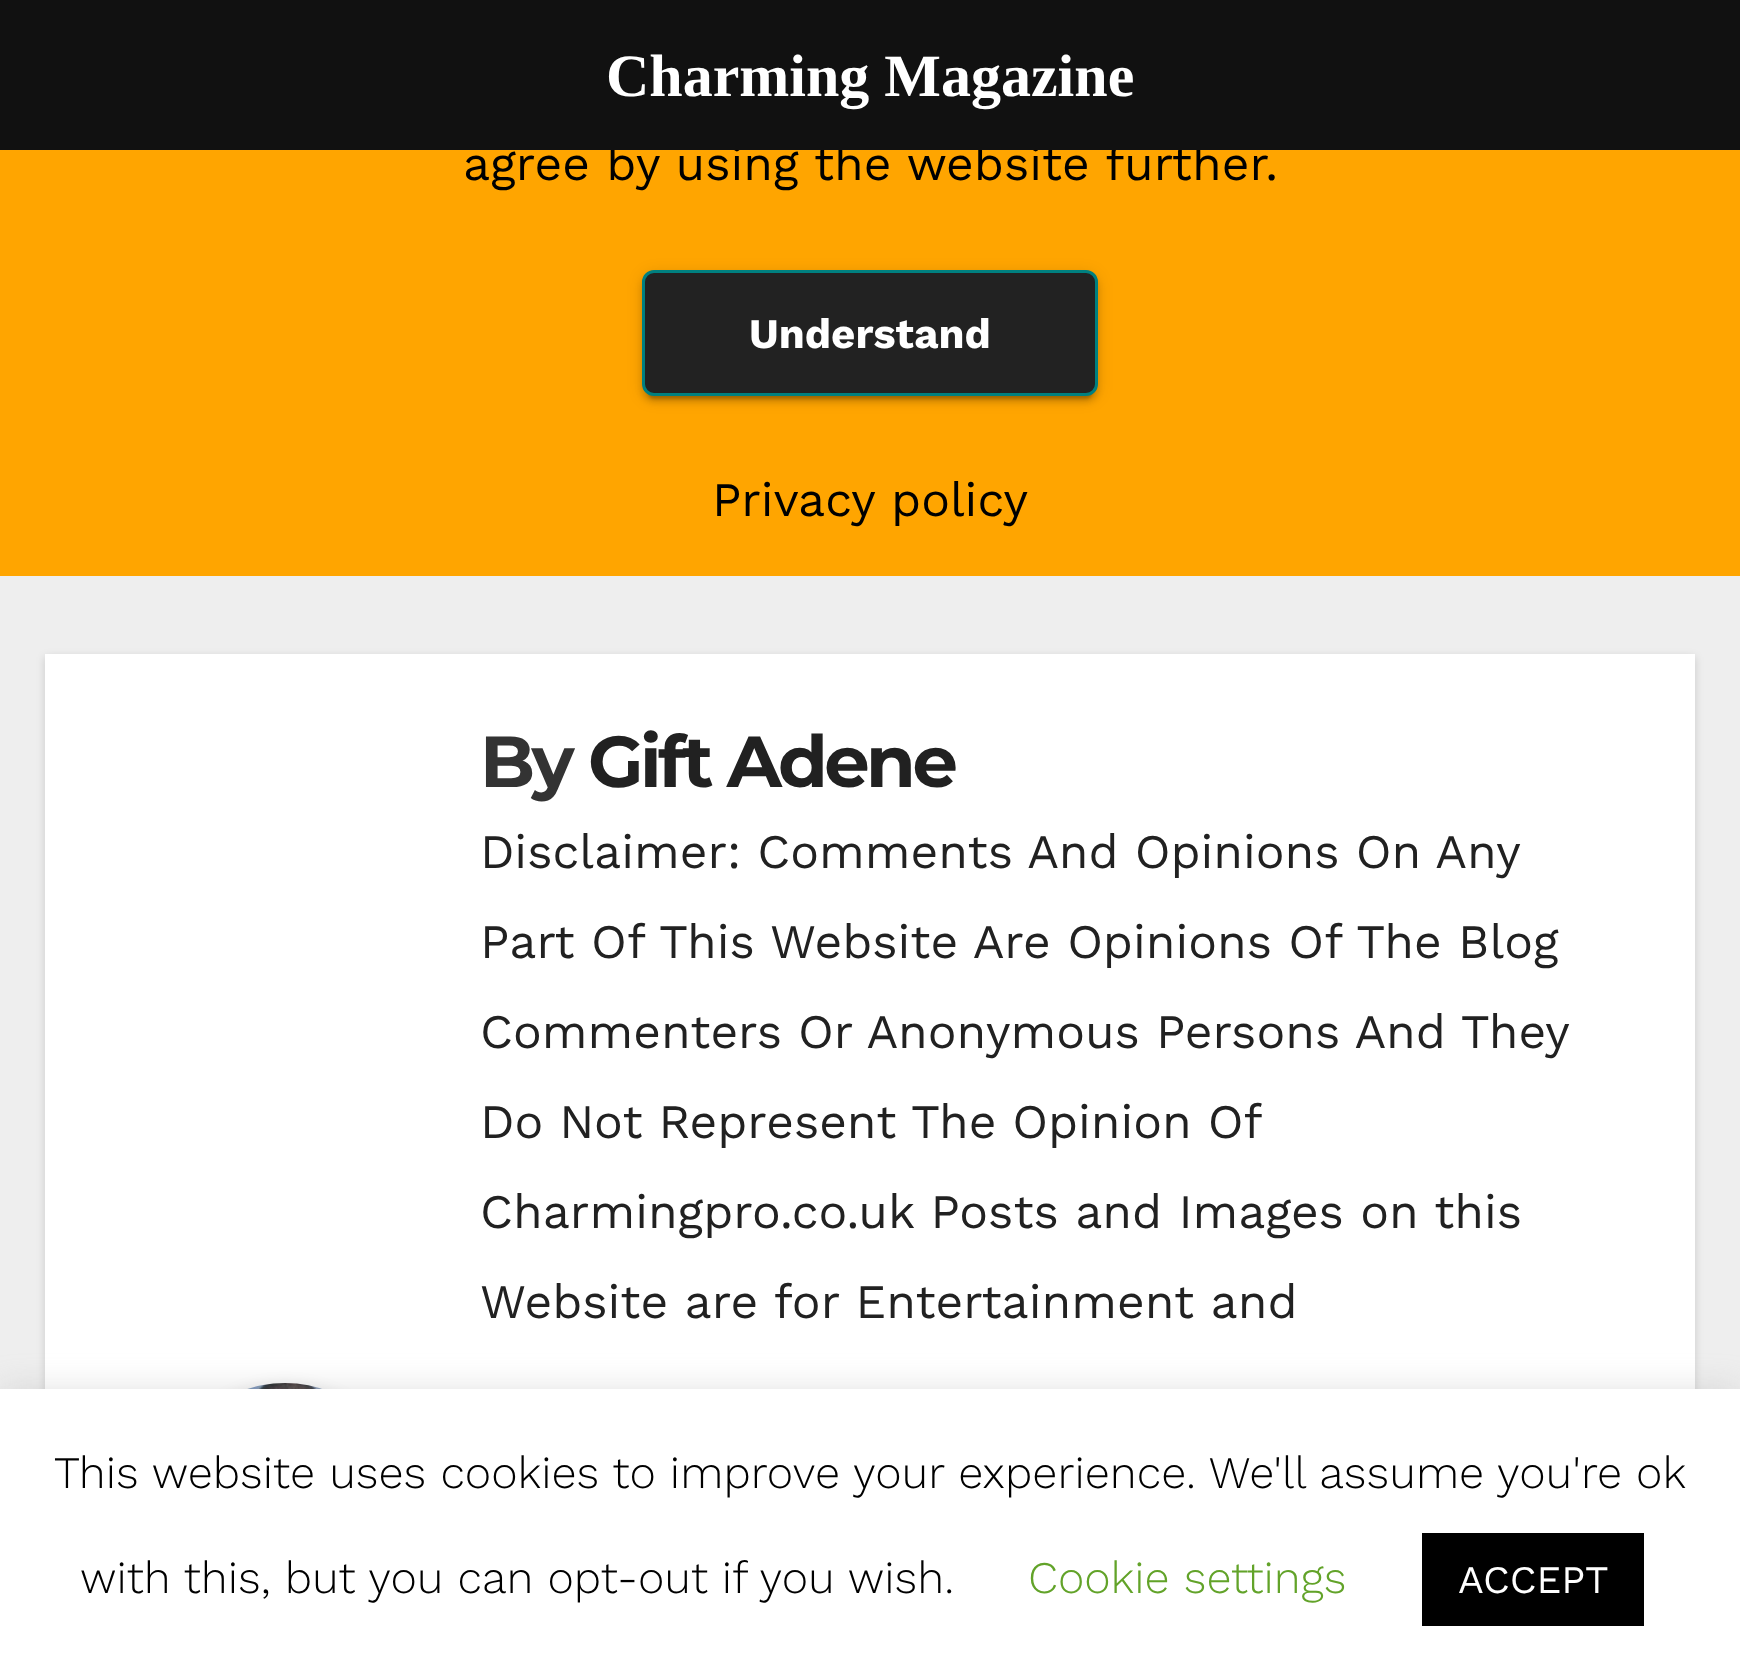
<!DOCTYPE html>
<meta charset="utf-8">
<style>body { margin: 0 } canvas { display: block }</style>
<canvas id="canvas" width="1740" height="1677"></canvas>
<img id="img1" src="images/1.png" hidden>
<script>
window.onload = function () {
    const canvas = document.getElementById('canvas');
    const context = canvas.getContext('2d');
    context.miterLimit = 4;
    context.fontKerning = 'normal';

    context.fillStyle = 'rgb(238, 238, 238)';
    context.fillRect(0, 0, 1740, 1677);
    context.fillStyle = 'rgb(255, 165, 0)';
    context.fillRect(0, 150, 1740, 426);
    context.fillStyle = 'rgba(0, 0, 0, 0.12)';
    context.filter = 'blur(7.5px)';
    context.beginPath();
    context.roundRect(642, 273, 456, 126, 12);
    context.fill();
    context.filter = 'none';
    context.fillStyle = 'rgba(0, 0, 0, 0.2)';
    context.filter = 'blur(1.5px)';
    context.beginPath();
    context.roundRect(648, 285, 444, 114, 6);
    context.fill();
    context.filter = 'none';
    context.fillStyle = 'rgba(0, 0, 0, 0.14)';
    context.filter = 'blur(3px)';
    context.beginPath();
    context.roundRect(642, 276, 456, 126, 12);
    context.fill();
    context.filter = 'none';
    context.fillStyle = 'rgb(34, 34, 34)';
    context.beginPath();
    context.roundRect(643.5, 271.5, 453, 123, 10.5);
    context.fill();
    context.strokeStyle = 'rgb(0, 128, 128)';
    context.lineWidth = 3;
    context.stroke();
    context.fillStyle = 'rgba(0, 0, 0, 0.15)';
    context.filter = 'blur(4.5px)';
    context.beginPath();
    context.rect(45, 657, 1650, 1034);
    context.fill();
    context.filter = 'none';
    context.fillStyle = 'rgb(255, 255, 255)';
    context.fillRect(45, 654, 1650, 735);
    context.fillStyle = 'rgba(0, 0, 0, 0.12)';
    context.filter = 'blur(7.5px)';
    context.beginPath();
    context.roundRect(165, 1386, 240, 240, 120);
    context.fill();
    context.filter = 'none';
    context.drawImage(document.getElementById('img1'), 247, 1383, 75, 6);
    context.fillStyle = 'rgba(172, 171, 171, 0.3)';
    context.filter = 'blur(15px)';
    context.beginPath();
    context.rect(0, 1386, 1740, 288);
    context.fill();
    context.filter = 'none';
    context.fillStyle = 'rgb(255, 255, 255)';
    context.fillRect(0, 1389, 1740, 288);
    context.fillStyle = 'rgb(0, 0, 0)';
    context.fillRect(1422, 1533, 222, 93);
    context.font = '48px Work Sans';
    context.fillText('agree by using the website further.', 463, 180);
    context.fillStyle = 'rgb(17, 17, 17)';
    context.fillRect(0, 0, 1740, 150);
    context.font = 'bold 60px Liberation Serif';
    context.fillStyle = 'rgb(255, 255, 255)';
    context.fillText('Charming Magazine', 606, 96);
    context.font = 'bold 42px Work Sans';
    context.fillText('Understand', 749, 348);
    context.font = '48px Work Sans';
    context.fillStyle = 'rgb(0, 0, 0)';
    context.fillText('Privacy policy', 712, 516);
    context.letterSpacing = '-3.6px';
    context.font = 'bold 72px Montserrat';
    context.fillStyle = 'rgb(51, 51, 51)';
    context.fillText('By', 480, 787);
    context.fillStyle = 'rgb(33, 33, 33)';
    context.fillText('Gift Adene', 588, 787);
    context.letterSpacing = '0px';
    context.wordSpacing = '-0.25px';
    context.font = '48px Work Sans';
    context.fillText('Disclaimer: Comments And Opinions On Any', 480, 868);
    context.wordSpacing = '0px';
    context.fillText('Part Of This Website Are Opinions Of The Blog', 480, 958);
    context.wordSpacing = '-0.25px';
    context.fillText('Commenters Or Anonymous Persons And They', 480, 1048);
    context.wordSpacing = '-0.5px';
    context.fillText('Do Not Represent The Opinion Of', 480, 1138);
    context.wordSpacing = '0px';
    context.fillText('Charmingpro.co.uk Posts and Images on this', 480, 1228);
    context.fillText('Website are for Entertainment and', 480, 1318);
    context.font = '300 45px Work Sans';
    context.fillStyle = 'rgb(0, 0, 0)';
    context.fillText('This website uses cookies to improve your experience. We\'ll assume you\'re ok', 54, 1488);
    context.fillText('with this, but you can opt-out if you wish.', 80, 1593);
    context.fillStyle = 'rgb(98, 163, 41)';
    context.fillText('Cookie settings', 1028, 1593);
    context.font = '39px Work Sans';
    context.fillStyle = 'rgb(255, 255, 255)';
    context.fillText('ACCEPT', 1458, 1593);
};
</script>
